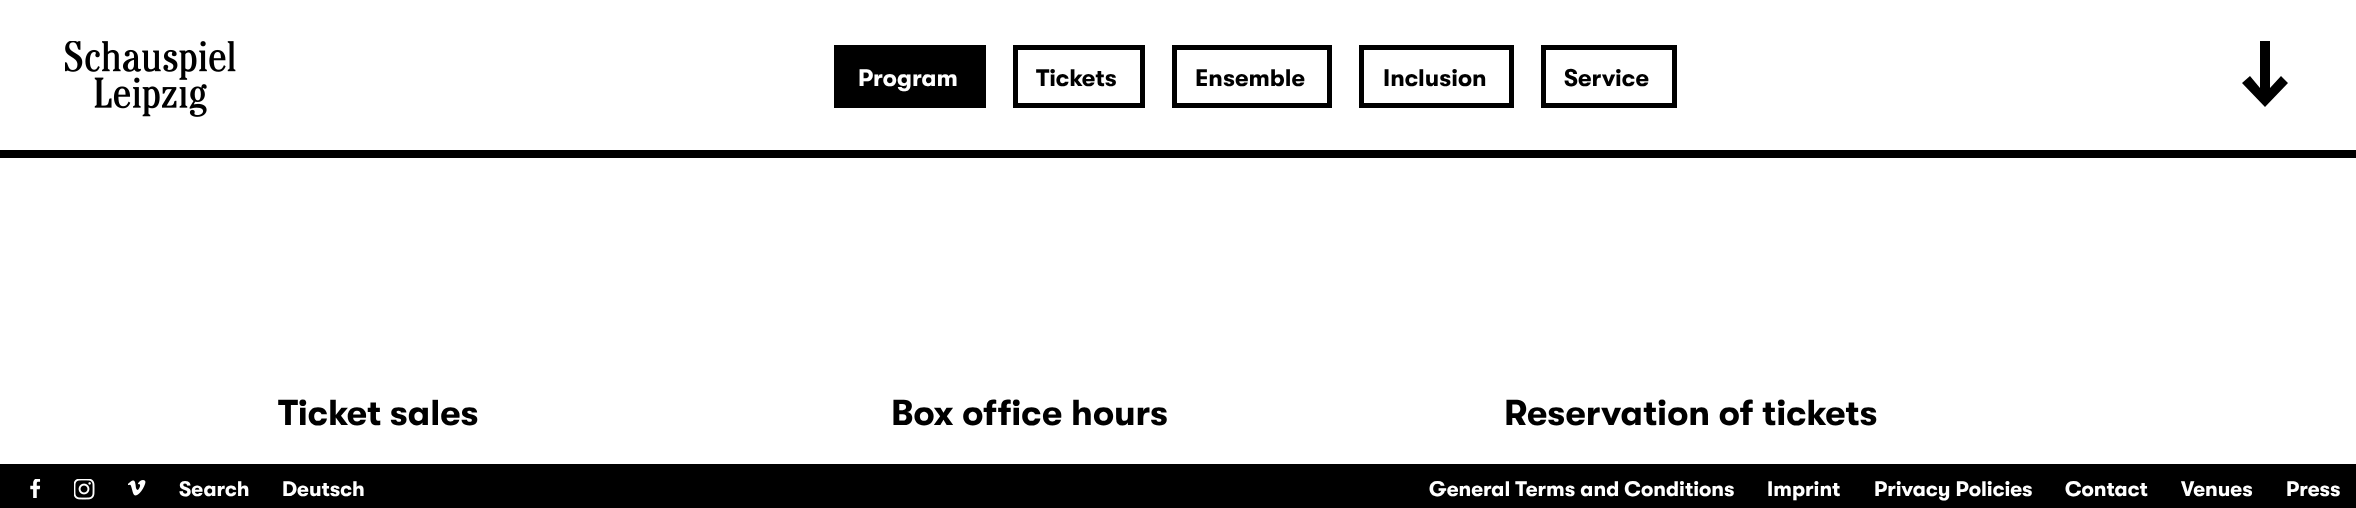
<!DOCTYPE html>
<meta charset="utf-8">
<style>body { margin: 0 } canvas { display: block }</style>
<canvas id="canvas" width="2356" height="508"></canvas>
<img id="img1" src="images/1.png" hidden>
<img id="img2" src="images/2.png" hidden>
<img id="img3" src="images/3.png" hidden>
<img id="img4" src="images/4.png" hidden>
<script>
window.onload = function () {
    const canvas = document.getElementById('canvas');
    const context = canvas.getContext('2d');
    context.miterLimit = 4;
    context.fontKerning = 'normal';

    context.fillStyle = 'rgb(255, 255, 255)';
    context.fillRect(0, 0, 2356, 508);
    context.fillStyle = 'rgb(0, 0, 0)';
    context.fillRect(0, 150, 2356, 8);
    context.drawImage(document.getElementById('img1'), 65, 41, 171, 76);
    context.fillRect(834, 45, 152, 63);
    context.strokeStyle = 'rgb(0, 0, 0)';
    context.lineWidth = 5;
    context.strokeRect(1015.5, 47.5, 127, 58);
    context.strokeRect(1174.5, 47.5, 155, 58);
    context.strokeRect(1361.5, 47.5, 150, 58);
    context.strokeRect(1543.5, 47.5, 131, 58);
    context.beginPath();
    context.moveTo(2260, 41);
    context.lineTo(2260, 88);
    context.lineTo(2250, 76);
    context.lineTo(2242, 83);
    context.lineTo(2265, 107);
    context.lineTo(2288, 83);
    context.lineTo(2281, 76);
    context.lineTo(2270, 88);
    context.lineTo(2270, 41);
    context.closePath();
    context.fill();
    context.fillRect(0, 464, 2356, 44);
    context.drawImage(document.getElementById('img2'), 30, 479, 11, 19);
    context.drawImage(document.getElementById('img3'), 74, 479, 21, 21);
    context.drawImage(document.getElementById('img4'), 128, 480, 18, 16);
    context.font = 'bold 24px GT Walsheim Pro';
    context.fillStyle = 'rgb(255, 255, 255)';
    context.fillText('Program', 858, 86);
    context.fillStyle = 'rgb(0, 0, 0)';
    context.fillText('Tickets', 1036, 86);
    context.fillText('Ensemble', 1195, 86);
    context.fillText('Inclusion', 1383, 86);
    context.fillText('Service', 1564, 86);
    context.font = 'bold 36px GT Walsheim Pro';
    context.fillText('Ticket sales', 278, 425);
    context.fillText('Box office hours', 891, 425);
    context.fillText('Reservation of tickets', 1504, 425);
    context.font = 'bold 21px GT Walsheim Pro';
    context.fillStyle = 'rgb(255, 255, 255)';
    context.fillText('Search', 179, 496);
    context.fillText('Deutsch', 282, 496);
    context.fillText('General Terms and Conditions', 1429, 496);
    context.fillText('Imprint', 1767, 496);
    context.fillText('Privacy Policies', 1874, 496);
    context.fillText('Contact', 2065, 496);
    context.fillText('Venues', 2181, 496);
    context.fillText('Press', 2286, 496);
};
</script>
